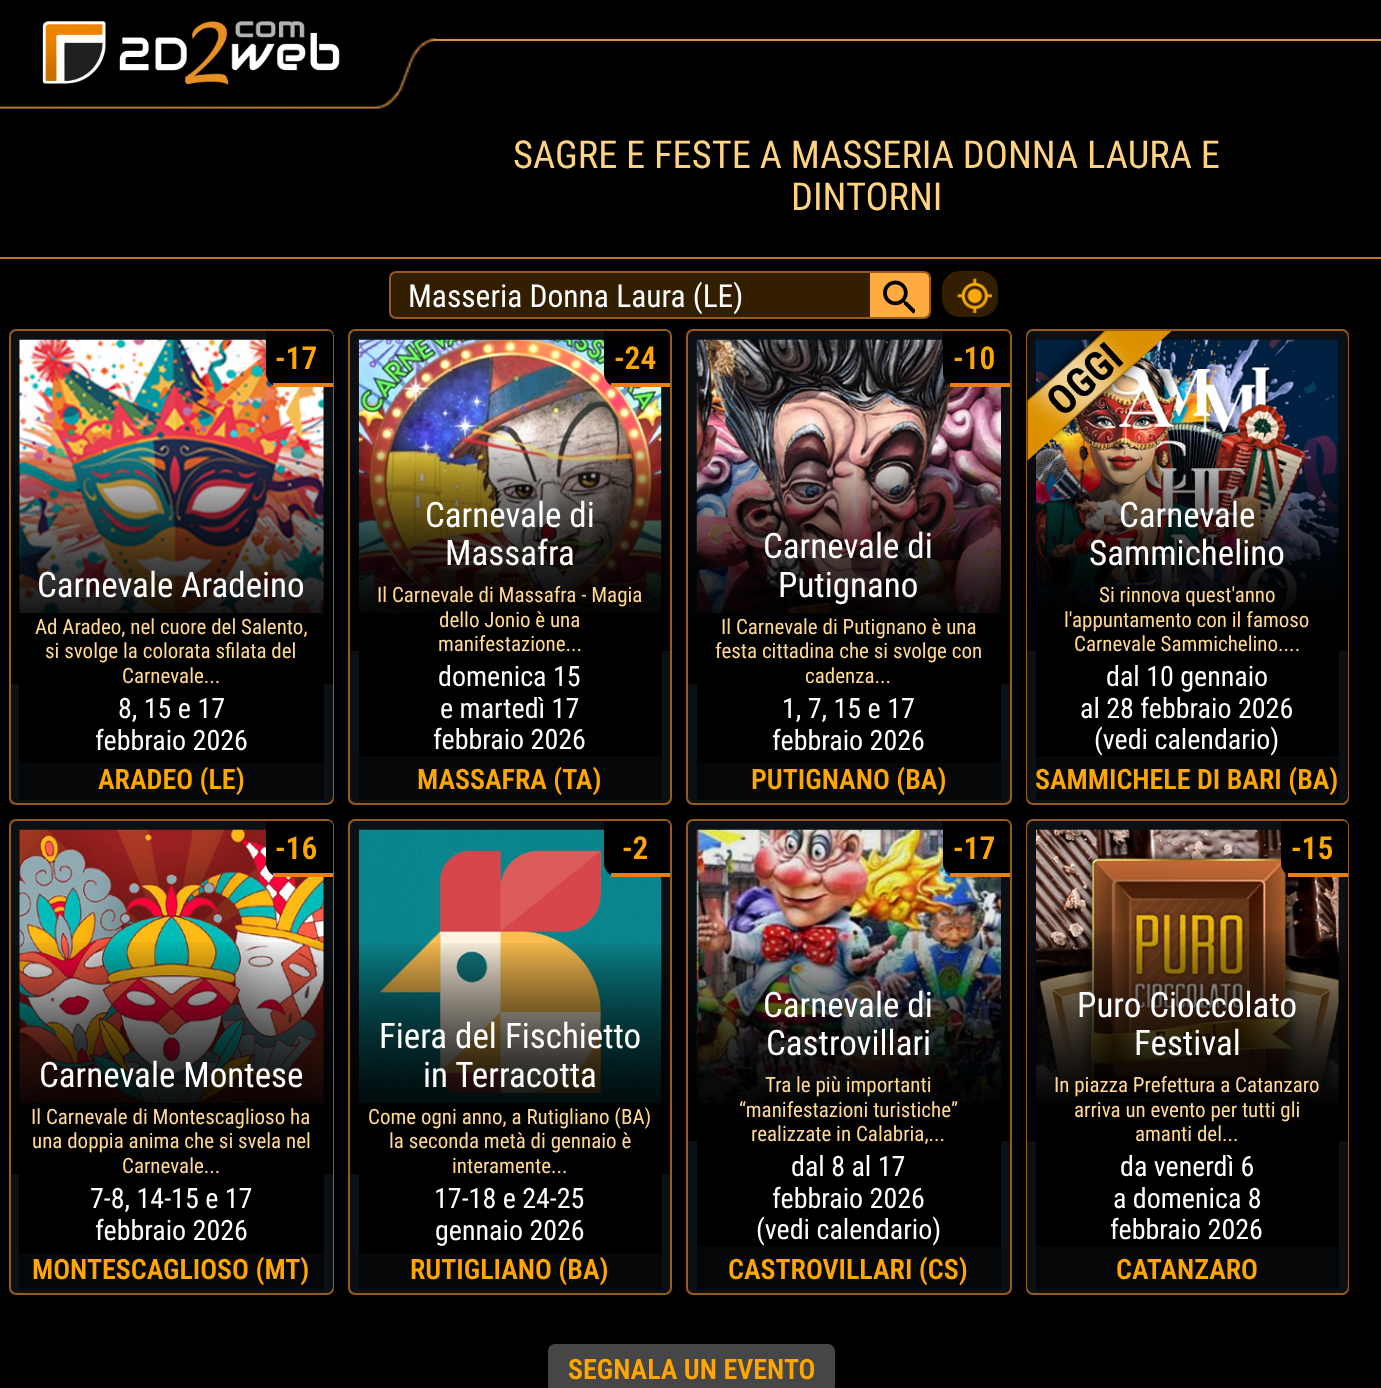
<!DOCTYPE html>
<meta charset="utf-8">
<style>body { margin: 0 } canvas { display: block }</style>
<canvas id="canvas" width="1381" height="1388"></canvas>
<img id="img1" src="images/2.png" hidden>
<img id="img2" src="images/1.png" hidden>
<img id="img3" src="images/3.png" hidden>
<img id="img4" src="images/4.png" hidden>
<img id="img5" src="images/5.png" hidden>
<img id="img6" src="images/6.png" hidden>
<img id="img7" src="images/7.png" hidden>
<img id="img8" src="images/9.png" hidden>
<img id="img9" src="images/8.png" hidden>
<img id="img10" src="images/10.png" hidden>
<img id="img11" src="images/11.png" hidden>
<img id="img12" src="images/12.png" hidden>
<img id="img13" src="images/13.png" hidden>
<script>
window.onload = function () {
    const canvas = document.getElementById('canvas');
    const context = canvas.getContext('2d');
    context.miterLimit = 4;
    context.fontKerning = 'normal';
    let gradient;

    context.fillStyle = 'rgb(0, 0, 0)';
    context.fillRect(0, 0, 1381, 1388);
    context.fillStyle = 'rgb(219, 142, 60)';
    context.fillRect(428, 39, 953, 2);
    context.drawImage(document.getElementById('img1'), 0, 38, 437, 71);
    context.drawImage(document.getElementById('img2'), 42, 21, 298, 64);
    context.fillStyle = 'rgb(191, 116, 37)';
    context.fillRect(0, 257, 1381, 2);
    context.fillStyle = 'rgb(51, 30, 0)';
    context.beginPath();
    context.roundRect(390, 272, 540, 46, 6);
    context.fill();
    context.strokeStyle = 'rgb(151, 91, 27)';
    context.lineWidth = 2;
    context.stroke();
    context.fillStyle = 'rgb(255, 171, 63)';
    context.beginPath();
    context.roundRect(870, 273, 59, 44, [0, 5, 5, 0]);
    context.fill();
    context.drawImage(document.getElementById('img3'), 883, 280, 32, 34);
    context.fillStyle = 'rgb(51, 30, 0)';
    context.beginPath();
    context.roundRect(942, 271, 56, 46, 18);
    context.fill();
    context.drawImage(document.getElementById('img4'), 957, 278, 35, 35);
    context.fillStyle = 'rgb(32, 32, 32)';
    context.beginPath();
    context.roundRect(10, 330, 323, 474, 6);
    context.fill();
    context.stroke();
    context.fillStyle = 'rgb(10, 16, 20)';
    context.beginPath();
    context.roundRect(11, 331, 322, 472, 7);
    context.fill();
    context.fillStyle = 'rgb(0, 0, 0)';
    context.fillRect(19, 340, 305, 273);
    context.drawImage(document.getElementById('img5'), 19, 339, 305, 274);
    context.beginPath();
    context.roundRect(266, 331, 67, 56, [0, 5, 0, 14]);
    context.fill();
    context.fillStyle = 'rgb(239, 127, 8)';
    context.fillRect(273, 383, 60, 4);
    context.fillStyle = 'rgb(0, 0, 0)';
    context.fillRect(19, 684, 305, 79);
    context.fillStyle = 'rgb(4, 6, 8)';
    context.fillRect(19, 763, 305, 37);
    gradient = context.createLinearGradient(171, 331, 172, 684);
    gradient.addColorStop(0.33, 'rgba(0, 0, 0, 0)');
    gradient.addColorStop(1, 'rgb(0, 0, 0)');
    context.fillStyle = gradient;
    context.fillRect(11, 452, 322, 231);
    context.fillRect(11, 452, 322, 232);
    context.fillStyle = 'rgb(32, 32, 32)';
    context.beginPath();
    context.roundRect(349, 330, 322, 474, 6);
    context.fill();
    context.stroke();
    context.fillStyle = 'rgb(10, 16, 20)';
    context.beginPath();
    context.roundRect(350, 331, 320, 472, 7);
    context.fill();
    context.fillStyle = 'rgb(0, 0, 0)';
    context.fillRect(661, 387, 1, 226);
    context.drawImage(document.getElementById('img6'), 358, 339, 304, 274);
    context.beginPath();
    context.roundRect(604, 331, 66, 56, [0, 5, 0, 14]);
    context.fill();
    context.fillStyle = 'rgb(239, 127, 8)';
    context.fillRect(611, 383, 59, 4);
    context.fillStyle = 'rgb(0, 0, 0)';
    context.fillRect(359, 651, 303, 105);
    context.fillStyle = 'rgb(4, 6, 8)';
    context.fillRect(359, 756, 303, 44);
    gradient = context.createLinearGradient(510, 331, 510, 646);
    gradient.addColorStop(0.33, 'rgba(0, 0, 0, 0)');
    gradient.addColorStop(1, 'rgb(0, 0, 0)');
    context.fillStyle = gradient;
    context.fillRect(350, 440, 320, 173);
    context.fillRect(350, 440, 320, 173);
    context.fillStyle = 'rgb(0, 0, 0)';
    context.fillRect(350, 613, 320, 38);
    context.fillStyle = 'rgb(32, 32, 32)';
    context.beginPath();
    context.roundRect(687, 330, 324, 474, 6);
    context.fill();
    context.stroke();
    context.fillStyle = 'rgb(10, 16, 20)';
    context.beginPath();
    context.roundRect(688, 331, 322, 472, 7);
    context.fill();
    context.drawImage(document.getElementById('img7'), 696, 339, 305, 274);
    context.fillStyle = 'rgb(0, 0, 0)';
    context.beginPath();
    context.roundRect(943, 331, 67, 56, [0, 5, 0, 14]);
    context.fill();
    context.fillStyle = 'rgb(239, 127, 8)';
    context.fillRect(950, 383, 60, 4);
    context.fillStyle = 'rgb(0, 0, 0)';
    context.fillRect(697, 684, 304, 79);
    context.fillStyle = 'rgb(4, 6, 8)';
    context.fillRect(697, 763, 304, 37);
    gradient = context.createLinearGradient(849, 331, 849, 684);
    gradient.addColorStop(0.33, 'rgba(0, 0, 0, 0)');
    gradient.addColorStop(1, 'rgb(0, 0, 0)');
    context.fillStyle = gradient;
    context.fillRect(688, 453, 322, 230);
    context.fillRect(688, 453, 322, 231);
    context.fillStyle = 'rgb(32, 32, 32)';
    context.beginPath();
    context.roundRect(1027, 330, 321, 474, 6);
    context.fill();
    context.stroke();
    context.fillStyle = 'rgb(10, 16, 20)';
    context.beginPath();
    context.roundRect(1027, 331, 321, 472, 7);
    context.fill();
    context.fillStyle = 'rgb(0, 0, 0)';
    context.fillRect(1338, 340, 1, 273);
    context.drawImage(document.getElementById('img8'), 1036, 339, 303, 274);
    gradient = context.createLinearGradient(1187, 331, 1187, 646);
    gradient.addColorStop(0.33, 'rgba(0, 0, 0, 0)');
    gradient.addColorStop(1, 'rgb(0, 0, 0)');
    context.fillStyle = gradient;
    context.fillRect(1027, 440, 321, 173);
    context.fillRect(1027, 440, 321, 173);
    context.drawImage(document.getElementById('img9'), 1027, 331, 145, 130);
    context.fillStyle = 'rgb(0, 0, 0)';
    context.fillRect(1027, 613, 321, 38);
    context.fillRect(1036, 651, 303, 105);
    context.fillStyle = 'rgb(4, 6, 8)';
    context.fillRect(1036, 756, 303, 44);
    context.fillStyle = 'rgb(32, 32, 32)';
    context.beginPath();
    context.roundRect(10, 820, 323, 474, 6);
    context.fill();
    context.stroke();
    context.fillStyle = 'rgb(10, 16, 20)';
    context.beginPath();
    context.roundRect(11, 821, 322, 472, 7);
    context.fill();
    context.fillStyle = 'rgb(0, 0, 0)';
    context.fillRect(19, 830, 305, 273);
    context.drawImage(document.getElementById('img10'), 19, 829, 305, 274);
    context.beginPath();
    context.roundRect(266, 821, 67, 56, [0, 5, 0, 14]);
    context.fill();
    context.fillStyle = 'rgb(239, 127, 8)';
    context.fillRect(273, 873, 60, 4);
    context.fillStyle = 'rgb(0, 0, 0)';
    context.fillRect(19, 1174, 305, 79);
    context.fillStyle = 'rgb(4, 6, 8)';
    context.fillRect(19, 1253, 305, 37);
    gradient = context.createLinearGradient(171, 821, 172, 1174);
    gradient.addColorStop(0.33, 'rgba(0, 0, 0, 0)');
    gradient.addColorStop(1, 'rgb(0, 0, 0)');
    context.fillStyle = gradient;
    context.fillRect(11, 942, 322, 231);
    context.fillRect(11, 942, 322, 232);
    context.fillStyle = 'rgb(32, 32, 32)';
    context.beginPath();
    context.roundRect(349, 820, 322, 474, 6);
    context.fill();
    context.stroke();
    context.fillStyle = 'rgb(10, 16, 20)';
    context.beginPath();
    context.roundRect(350, 821, 320, 472, 7);
    context.fill();
    context.fillStyle = 'rgb(0, 0, 0)';
    context.fillRect(661, 877, 1, 226);
    context.drawImage(document.getElementById('img11'), 358, 829, 304, 274);
    context.beginPath();
    context.roundRect(604, 821, 66, 56, [0, 5, 0, 14]);
    context.fill();
    context.fillStyle = 'rgb(239, 127, 8)';
    context.fillRect(611, 873, 59, 4);
    context.fillStyle = 'rgb(0, 0, 0)';
    context.fillRect(359, 1174, 303, 79);
    context.fillStyle = 'rgb(4, 6, 8)';
    context.fillRect(359, 1253, 303, 37);
    gradient = context.createLinearGradient(510, 821, 510, 1174);
    gradient.addColorStop(0.33, 'rgba(0, 0, 0, 0)');
    gradient.addColorStop(1, 'rgb(0, 0, 0)');
    context.fillStyle = gradient;
    context.fillRect(350, 943, 320, 230);
    context.fillRect(350, 943, 320, 231);
    context.fillStyle = 'rgb(32, 32, 32)';
    context.beginPath();
    context.roundRect(687, 820, 324, 474, 6);
    context.fill();
    context.stroke();
    context.fillStyle = 'rgb(10, 16, 20)';
    context.beginPath();
    context.roundRect(688, 821, 322, 472, 7);
    context.fill();
    context.drawImage(document.getElementById('img12'), 696, 829, 305, 274);
    context.fillStyle = 'rgb(0, 0, 0)';
    context.beginPath();
    context.roundRect(943, 821, 67, 56, [0, 5, 0, 14]);
    context.fill();
    context.fillStyle = 'rgb(239, 127, 8)';
    context.fillRect(950, 873, 60, 4);
    context.fillStyle = 'rgb(0, 0, 0)';
    context.fillRect(697, 1141, 304, 105);
    context.fillStyle = 'rgb(4, 6, 8)';
    context.fillRect(697, 1246, 304, 44);
    gradient = context.createLinearGradient(849, 821, 849, 1136);
    gradient.addColorStop(0.33, 'rgba(0, 0, 0, 0)');
    gradient.addColorStop(1, 'rgb(0, 0, 0)');
    context.fillStyle = gradient;
    context.fillRect(688, 930, 322, 173);
    context.fillRect(688, 930, 322, 173);
    context.fillStyle = 'rgb(0, 0, 0)';
    context.fillRect(688, 1103, 322, 38);
    context.fillStyle = 'rgb(32, 32, 32)';
    context.beginPath();
    context.roundRect(1027, 820, 321, 474, 6);
    context.fill();
    context.stroke();
    context.fillStyle = 'rgb(10, 16, 20)';
    context.beginPath();
    context.roundRect(1027, 821, 321, 472, 7);
    context.fill();
    context.fillStyle = 'rgb(0, 0, 0)';
    context.fillRect(1338, 877, 1, 226);
    context.drawImage(document.getElementById('img13'), 1036, 829, 303, 274);
    context.beginPath();
    context.roundRect(1281, 821, 67, 56, [0, 5, 0, 14]);
    context.fill();
    context.fillStyle = 'rgb(239, 127, 8)';
    context.fillRect(1288, 873, 60, 4);
    context.fillStyle = 'rgb(0, 0, 0)';
    context.fillRect(1036, 1141, 303, 105);
    context.fillStyle = 'rgb(4, 6, 8)';
    context.fillRect(1036, 1246, 303, 44);
    gradient = context.createLinearGradient(1187, 821, 1187, 1136);
    gradient.addColorStop(0.33, 'rgba(0, 0, 0, 0)');
    gradient.addColorStop(1, 'rgb(0, 0, 0)');
    context.fillStyle = gradient;
    context.fillRect(1027, 930, 321, 173);
    context.fillRect(1027, 930, 321, 173);
    context.fillStyle = 'rgb(0, 0, 0)';
    context.fillRect(1027, 1103, 321, 38);
    context.fillStyle = 'rgb(70, 70, 70)';
    context.beginPath();
    context.roundRect(548, 1344, 287, 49, 7);
    context.fill();
    context.font = '38.5px Roboto Condensed';
    context.fillStyle = 'rgb(255, 211, 128)';
    context.fillText('SAGRE E FESTE A MASSERIA DONNA LAURA E', 513, 168);
    context.fillText('DINTORNI', 791, 210);
    context.font = '31.5px Roboto Condensed';
    context.fillStyle = 'rgb(255, 255, 255)';
    context.fillText('Masseria Donna Laura (LE)', 408, 307);
    context.font = '600 31.5px Roboto Condensed';
    context.fillStyle = 'rgb(255, 167, 0)';
    context.fillText('-17', 275, 369);
    context.font = '28px Roboto Condensed';
    context.fillStyle = 'rgb(255, 255, 255)';
    context.fillText('8, 15 e 17', 118, 718);
    context.fillText('febbraio 2026', 95, 750);
    context.font = '600 28px Roboto Condensed';
    context.fillStyle = 'rgb(255, 167, 0)';
    context.fillText('ARADEO (LE)', 98, 789);
    context.font = '35px Roboto Condensed';
    context.fillStyle = 'rgb(255, 255, 255)';
    context.fillText('Carnevale Aradeino', 37, 597);
    context.font = '21px Roboto Condensed';
    context.fillStyle = 'rgb(255, 217, 146)';
    context.fillText('Ad Aradeo, nel cuore del Salento,', 35, 634);
    context.fillText('si svolge la colorata sfilata del', 45, 658);
    context.fillText('Carnevale...', 122, 683);
    context.font = '600 31.5px Roboto Condensed';
    context.fillStyle = 'rgb(255, 167, 0)';
    context.fillText('-24', 614, 369);
    context.font = '28px Roboto Condensed';
    context.fillStyle = 'rgb(255, 255, 255)';
    context.fillText('domenica 15', 438, 686);
    context.fillText('e martedì 17', 440, 718);
    context.fillText('febbraio 2026', 433, 749);
    context.font = '600 28px Roboto Condensed';
    context.fillStyle = 'rgb(255, 167, 0)';
    context.fillText('MASSAFRA (TA)', 417, 789);
    context.font = '35px Roboto Condensed';
    context.fillStyle = 'rgb(255, 255, 255)';
    context.fillText('Carnevale di', 425, 527);
    context.fillText('Massafra', 445, 565);
    context.font = '21px Roboto Condensed';
    context.fillStyle = 'rgb(255, 217, 146)';
    context.fillText('Il Carnevale di Massafra - Magia', 377, 602);
    context.fillText('dello Jonio è una', 439, 627);
    context.fillText('manifestazione...', 438, 651);
    context.font = '600 31.5px Roboto Condensed';
    context.fillStyle = 'rgb(255, 167, 0)';
    context.fillText('-10', 953, 369);
    context.font = '28px Roboto Condensed';
    context.fillStyle = 'rgb(255, 255, 255)';
    context.fillText('1, 7, 15 e 17', 782, 718);
    context.fillText('febbraio 2026', 772, 750);
    context.font = '600 28px Roboto Condensed';
    context.fillStyle = 'rgb(255, 167, 0)';
    context.fillText('PUTIGNANO (BA)', 751, 789);
    context.font = '35px Roboto Condensed';
    context.fillStyle = 'rgb(255, 255, 255)';
    context.fillText('Carnevale di', 763, 558);
    context.fillText('Putignano', 778, 597);
    context.font = '21px Roboto Condensed';
    context.fillStyle = 'rgb(255, 217, 146)';
    context.fillText('Il Carnevale di Putignano è una', 721, 634);
    context.fillText('festa cittadina che si svolge con', 715, 658);
    context.fillText('cadenza...', 805, 683);
    context.font = '35px Roboto Condensed';
    context.fillStyle = 'rgb(255, 255, 255)';
    context.fillText('Carnevale', 1119, 527);
    context.fillText('Sammichelino', 1089, 565);
    context.font = '21px Roboto Condensed';
    context.fillStyle = 'rgb(255, 217, 146)';
    context.fillText('Si rinnova quest\'anno', 1099, 602);
    context.fillText('l\'appuntamento con il famoso', 1064, 627);
    context.fillText('Carnevale Sammichelino....', 1074, 651);
    context.font = '28px Roboto Condensed';
    context.fillStyle = 'rgb(255, 255, 255)';
    context.fillText('dal 10 gennaio', 1106, 686);
    context.fillText('al 28 febbraio 2026', 1080, 718);
    context.fillText('(vedi calendario)', 1094, 749);
    context.font = '600 28px Roboto Condensed';
    context.fillStyle = 'rgb(255, 167, 0)';
    context.fillText('SAMMICHELE DI BARI (BA)', 1035, 789);
    context.font = '600 31.5px Roboto Condensed';
    context.fillText('-16', 275, 859);
    context.font = '28px Roboto Condensed';
    context.fillStyle = 'rgb(255, 255, 255)';
    context.fillText('7-8, 14-15 e 17', 90, 1208);
    context.fillText('febbraio 2026', 95, 1240);
    context.font = '600 28px Roboto Condensed';
    context.fillStyle = 'rgb(255, 167, 0)';
    context.fillText('MONTESCAGLIOSO (MT)', 32, 1279);
    context.font = '35px Roboto Condensed';
    context.fillStyle = 'rgb(255, 255, 255)';
    context.fillText('Carnevale Montese', 39, 1087);
    context.font = '21px Roboto Condensed';
    context.fillStyle = 'rgb(255, 217, 146)';
    context.fillText('Il Carnevale di Montescaglioso ha', 31, 1124);
    context.fillText('una doppia anima che si svela nel', 32, 1148);
    context.fillText('Carnevale...', 122, 1173);
    context.font = '600 31.5px Roboto Condensed';
    context.fillStyle = 'rgb(255, 167, 0)';
    context.fillText('-2', 622, 859);
    context.font = '28px Roboto Condensed';
    context.fillStyle = 'rgb(255, 255, 255)';
    context.fillText('17-18 e 24-25', 434, 1208);
    context.fillText('gennaio 2026', 435, 1240);
    context.font = '600 28px Roboto Condensed';
    context.fillStyle = 'rgb(255, 167, 0)';
    context.fillText('RUTIGLIANO (BA)', 410, 1279);
    context.font = '35px Roboto Condensed';
    context.fillStyle = 'rgb(255, 255, 255)';
    context.fillText('Fiera del Fischietto', 379, 1048);
    context.fillText('in Terracotta', 423, 1087);
    context.font = '21px Roboto Condensed';
    context.fillStyle = 'rgb(255, 217, 146)';
    context.fillText('Come ogni anno, a Rutigliano (BA)', 368, 1124);
    context.fillText('la seconda metà di gennaio è', 389, 1148);
    context.fillText('interamente...', 452, 1173);
    context.font = '600 31.5px Roboto Condensed';
    context.fillStyle = 'rgb(255, 167, 0)';
    context.fillText('-17', 953, 859);
    context.font = '28px Roboto Condensed';
    context.fillStyle = 'rgb(255, 255, 255)';
    context.fillText('dal 8 al 17', 791, 1176);
    context.fillText('febbraio 2026', 772, 1208);
    context.fillText('(vedi calendario)', 756, 1239);
    context.font = '600 28px Roboto Condensed';
    context.fillStyle = 'rgb(255, 167, 0)';
    context.fillText('CASTROVILLARI (CS)', 728, 1279);
    context.font = '35px Roboto Condensed';
    context.fillStyle = 'rgb(255, 255, 255)';
    context.fillText('Carnevale di', 763, 1017);
    context.fillText('Castrovillari', 766, 1055);
    context.font = '21px Roboto Condensed';
    context.fillStyle = 'rgb(255, 217, 146)';
    context.fillText('Tra le più importanti', 765, 1092);
    context.fillText('“manifestazioni turistiche”', 739, 1117);
    context.fillText('realizzate in Calabria,...', 751, 1141);
    context.font = '600 31.5px Roboto Condensed';
    context.fillStyle = 'rgb(255, 167, 0)';
    context.fillText('-15', 1291, 859);
    context.font = '28px Roboto Condensed';
    context.fillStyle = 'rgb(255, 255, 255)';
    context.fillText('da venerdì 6', 1120, 1176);
    context.fillText('a domenica 8', 1113, 1208);
    context.fillText('febbraio 2026', 1110, 1239);
    context.font = '600 28px Roboto Condensed';
    context.fillStyle = 'rgb(255, 167, 0)';
    context.fillText('CATANZARO', 1116, 1279);
    context.font = '35px Roboto Condensed';
    context.fillStyle = 'rgb(255, 255, 255)';
    context.fillText('Puro Cioccolato', 1077, 1017);
    context.fillText('Festival', 1134, 1055);
    context.font = '21px Roboto Condensed';
    context.fillStyle = 'rgb(255, 217, 146)';
    context.fillText('In piazza Prefettura a Catanzaro', 1054, 1092);
    context.fillText('arriva un evento per tutti gli', 1074, 1117);
    context.fillText('amanti del...', 1135, 1141);
    context.font = '600 28px Roboto Condensed';
    context.fillStyle = 'rgb(255, 167, 0)';
    context.fillText('SEGNALA UN EVENTO', 568, 1379);
};
</script>
